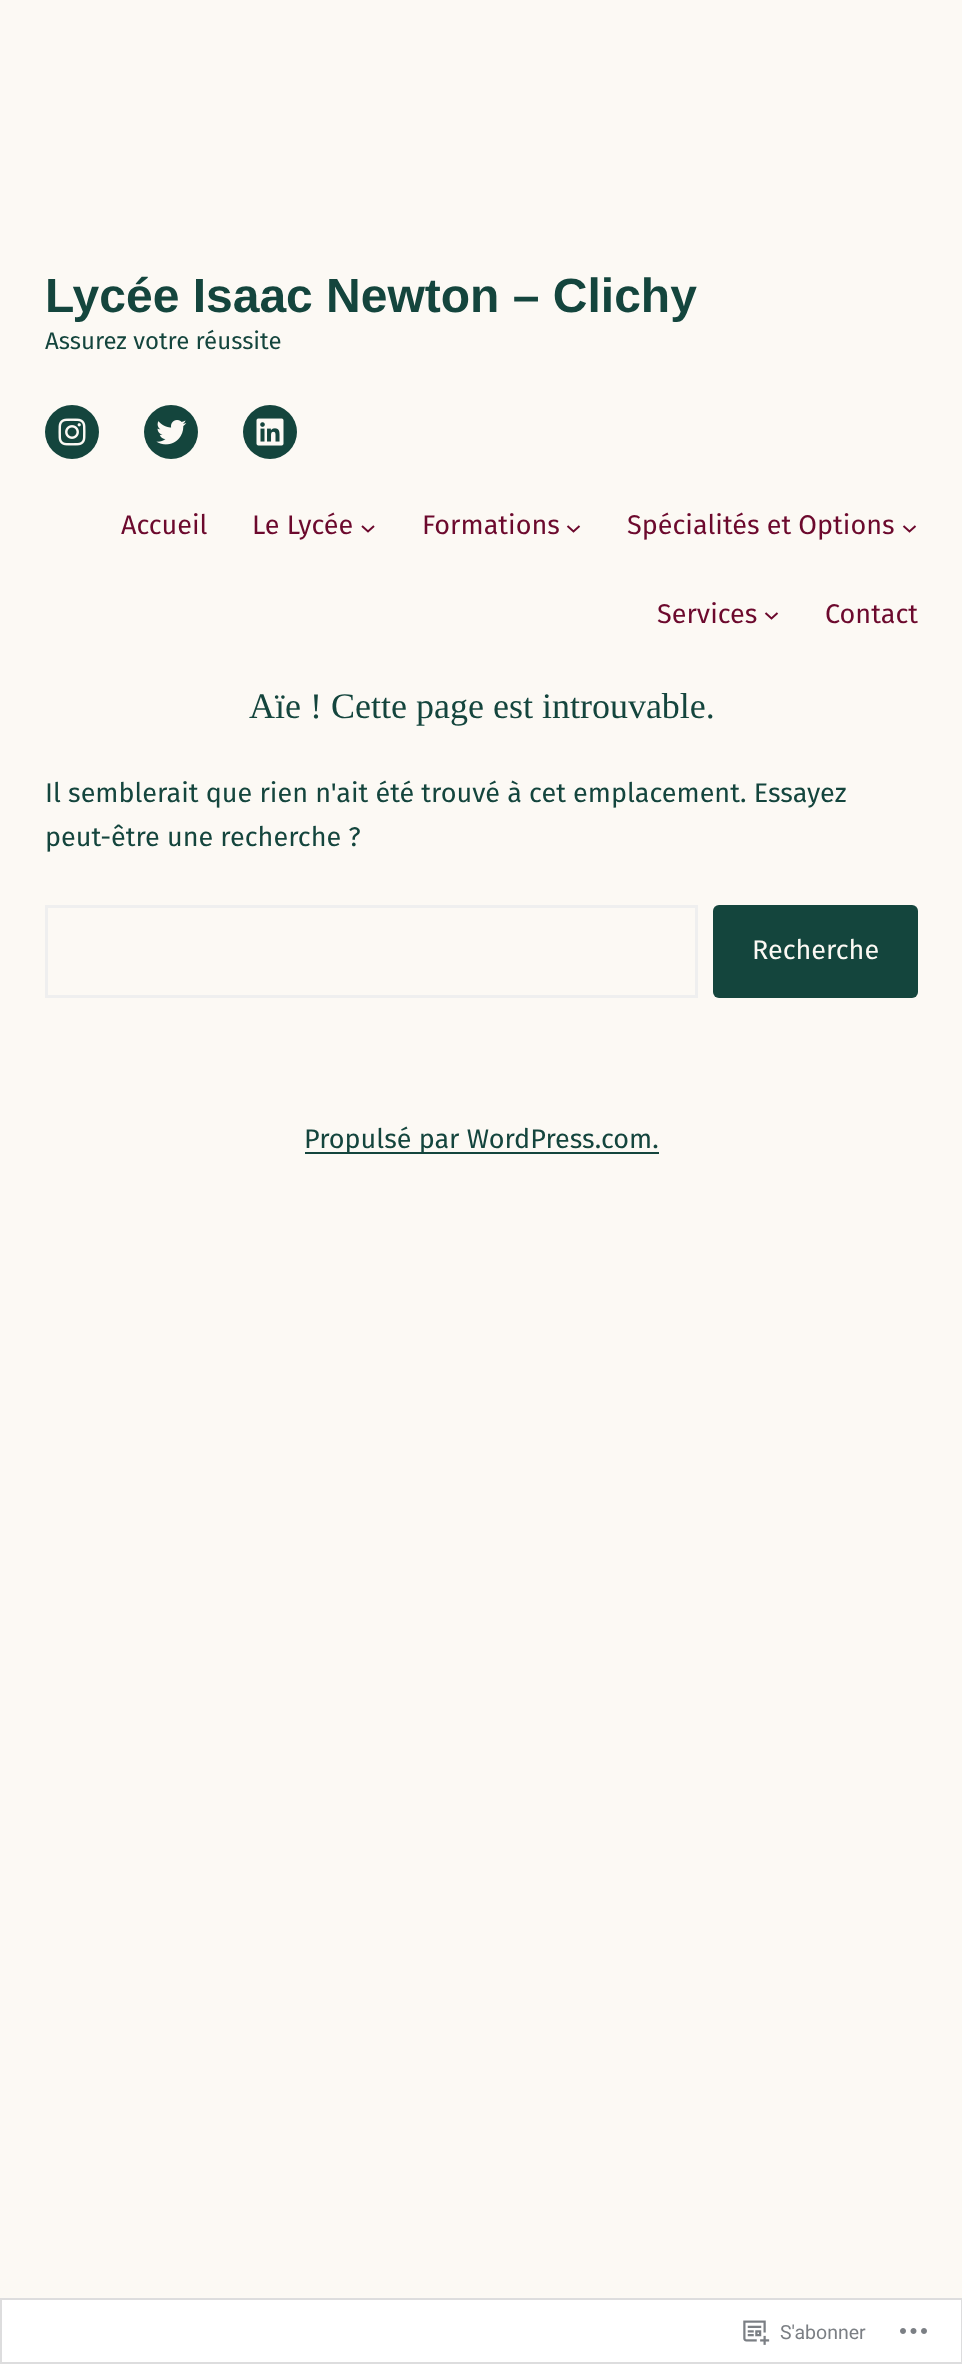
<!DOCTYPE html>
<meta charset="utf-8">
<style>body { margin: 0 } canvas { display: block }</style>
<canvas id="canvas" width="962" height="2364"></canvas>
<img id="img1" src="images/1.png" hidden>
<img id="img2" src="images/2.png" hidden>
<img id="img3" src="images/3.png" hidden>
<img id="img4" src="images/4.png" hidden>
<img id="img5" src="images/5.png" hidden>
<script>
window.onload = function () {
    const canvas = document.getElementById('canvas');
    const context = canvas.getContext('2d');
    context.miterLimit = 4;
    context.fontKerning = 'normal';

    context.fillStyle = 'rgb(252, 249, 244)';
    context.fillRect(0, 0, 962, 2364);
    context.fillStyle = 'rgb(20, 69, 61)';
    context.beginPath();
    context.arc(72, 432, 27, 0, 2 * Math.PI);
    context.fill();
    context.drawImage(document.getElementById('img1'), 58, 418, 28, 28);
    context.beginPath();
    context.arc(171, 432, 27, 0, 2 * Math.PI);
    context.fill();
    context.drawImage(document.getElementById('img2'), 156, 420, 31, 25);
    context.beginPath();
    context.arc(270, 432, 27, 0, 2 * Math.PI);
    context.fill();
    context.drawImage(document.getElementById('img3'), 256, 418, 28, 28);
    context.beginPath();
    context.moveTo(362, 526);
    context.lineTo(368, 531.5);
    context.lineTo(374, 526);
    context.strokeStyle = 'rgb(108, 9, 45)';
    context.lineWidth = 2;
    context.stroke();
    context.beginPath();
    context.moveTo(567.5, 526);
    context.lineTo(573.5, 531.5);
    context.lineTo(579.5, 526);
    context.stroke();
    context.beginPath();
    context.moveTo(903.5, 526);
    context.lineTo(909.5, 531.5);
    context.lineTo(915.5, 526);
    context.stroke();
    context.beginPath();
    context.moveTo(765.5, 613);
    context.lineTo(771.5, 618.5);
    context.lineTo(777.5, 613);
    context.stroke();
    context.strokeStyle = 'rgb(239, 239, 239)';
    context.lineWidth = 3;
    context.strokeRect(46.5, 906.5, 650, 90);
    context.beginPath();
    context.roundRect(713, 905, 205, 93, 6);
    context.fill();
    context.fillRect(305, 1152, 354, 2);
    context.fillStyle = 'rgb(255, 255, 255)';
    context.beginPath();
    context.rect(1, 2299, 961, 64);
    context.fill();
    context.strokeStyle = 'rgb(221, 221, 222)';
    context.lineWidth = 2;
    context.stroke();
    context.drawImage(document.getElementById('img4'), 743, 2320, 27, 25);
    context.drawImage(document.getElementById('img5'), 900, 2328, 27, 6);
    context.font = 'bold 48px Liberation Sans';
    context.fillStyle = 'rgb(20, 69, 61)';
    context.fillText('Lycée Isaac Newton – Clichy', 45, 312);
    context.font = '24px Fira Sans';
    context.fillText('Assurez votre réussite', 45, 349);
    context.font = '27px Fira Sans';
    context.fillStyle = 'rgb(108, 9, 45)';
    context.fillText('Accueil', 121, 534);
    context.fillText('Le Lycée', 252, 534);
    context.fillText('Formations', 422, 534);
    context.fillText('Spécialités et Options', 627, 534);
    context.fillText('Services', 657, 623);
    context.fillText('Contact', 825, 623);
    context.font = '36px Liberation Serif';
    context.fillStyle = 'rgb(20, 69, 61)';
    context.fillText('Aïe ! Cette page est introuvable.', 249, 718);
    context.font = '27px Fira Sans';
    context.fillText('Il semblerait que rien n\'ait été trouvé à cet emplacement. Essayez', 45, 802);
    context.fillText('peut-être une recherche ?', 45, 846);
    context.fillStyle = 'rgb(252, 249, 244)';
    context.fillText('Recherche', 752, 959);
    context.fillStyle = 'rgb(20, 69, 61)';
    context.fillText('Propulsé par WordPress.com.', 304, 1148);
    context.font = '19.5px Roboto';
    context.fillStyle = 'rgb(123, 127, 132)';
    context.fillText('S\'abonner', 780, 2339);
};
</script>
